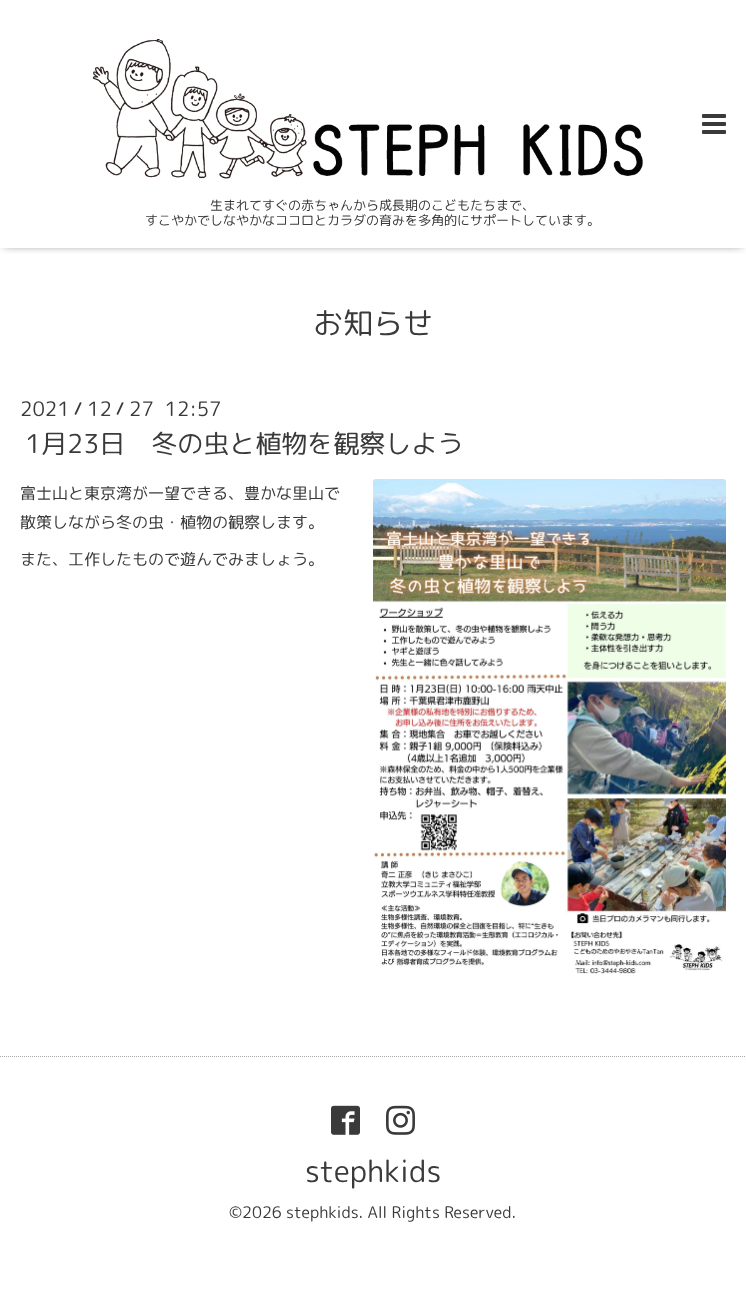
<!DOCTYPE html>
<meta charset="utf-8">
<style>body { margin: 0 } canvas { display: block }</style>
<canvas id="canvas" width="746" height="1300"></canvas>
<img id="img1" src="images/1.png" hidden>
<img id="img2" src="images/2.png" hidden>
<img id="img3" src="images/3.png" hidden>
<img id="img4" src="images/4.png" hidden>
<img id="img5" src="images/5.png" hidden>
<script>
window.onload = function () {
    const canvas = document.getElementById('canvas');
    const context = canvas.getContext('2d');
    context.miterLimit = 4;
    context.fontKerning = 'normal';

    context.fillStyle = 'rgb(255, 255, 255)';
    context.fillRect(0, 0, 746, 1300);
    context.save();
    context.beginPath();
    context.rect(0, 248, 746, 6);
    context.clip();
    context.fillStyle = 'rgba(0, 0, 0, 0.6)';
    context.filter = 'blur(5px)';
    context.beginPath();
    context.rect(4, 5, 738, 240);
    context.fill();
    context.filter = 'none';
    context.restore();
    context.drawImage(document.getElementById('img1'), 702, 114, 24, 20);
    context.drawImage(document.getElementById('img2'), 92, 39, 551, 140);
    context.drawImage(document.getElementById('img3'), 373, 479, 353, 495);
    context.beginPath();
    context.moveTo(0, 1056.5);
    context.lineTo(746, 1056.5);
    context.strokeStyle = 'rgb(169, 169, 169)';
    context.setLineDash([1, 1]);
    context.stroke();
    context.drawImage(document.getElementById('img4'), 331, 1105, 29, 30);
    context.drawImage(document.getElementById('img5'), 386, 1105, 29, 30);
    context.font = '13px "Rounded Mplus 1c"';
    context.fillStyle = 'rgb(58, 58, 58)';
    context.fillText('生まれてすぐの赤ちゃんから成長期のこどもたちまで、', 210, 210);
    context.fillText('すこやかでしなやかなココロとカラダの育みを多角的にサポートしています。', 145, 225);
    context.font = '30px "Rounded Mplus 1c"';
    context.fillText('お知らせ', 313, 334);
    context.font = '20px "Rounded Mplus 1c"';
    context.fillText('2021', 20, 416);
    context.font = 'bold 16px "Rounded Mplus 1c Bold"';
    context.fillText('/', 74, 414);
    context.font = '20px "Rounded Mplus 1c"';
    context.fillText('12', 87, 416);
    context.font = 'bold 16px "Rounded Mplus 1c Bold"';
    context.fillText('/', 116, 414);
    context.font = '20px "Rounded Mplus 1c"';
    context.fillText('27  12:57', 129, 416);
    context.font = '26px "Rounded Mplus 1c"';
    context.fillText('1月23日　冬の虫と植物を観察しよう', 25, 453);
    context.font = '16px "Rounded Mplus 1c"';
    context.fillText('富士山と東京湾が一望できる、豊かな里山で', 20, 499);
    context.fillText('散策しながら冬の虫・植物の観察します。', 20, 528);
    context.fillText('また、工作したもので遊んでみましょう。', 20, 565);
    context.font = '30px "Rounded Mplus 1c"';
    context.fillText('stephkids', 305, 1182);
    context.font = '16px "Rounded Mplus 1c"';
    context.fillText('©2026 stephkids. All Rights Reserved.', 229, 1218);
};
</script>
